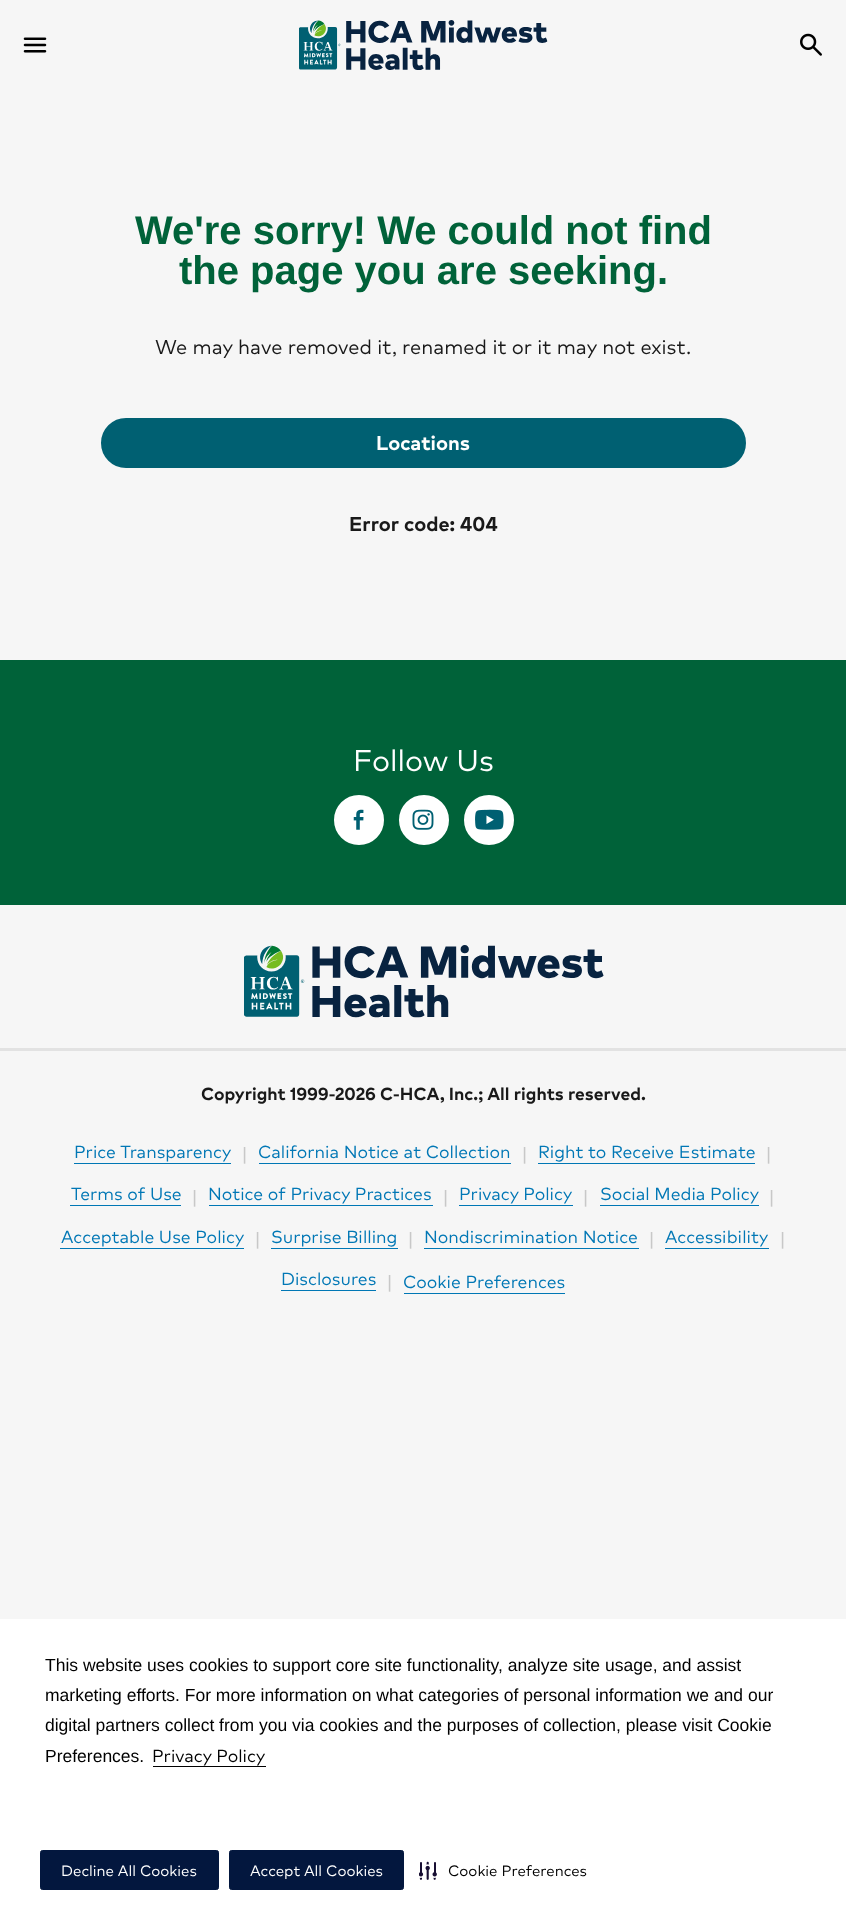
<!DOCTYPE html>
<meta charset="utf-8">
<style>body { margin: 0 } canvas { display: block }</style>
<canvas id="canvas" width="846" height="1929"></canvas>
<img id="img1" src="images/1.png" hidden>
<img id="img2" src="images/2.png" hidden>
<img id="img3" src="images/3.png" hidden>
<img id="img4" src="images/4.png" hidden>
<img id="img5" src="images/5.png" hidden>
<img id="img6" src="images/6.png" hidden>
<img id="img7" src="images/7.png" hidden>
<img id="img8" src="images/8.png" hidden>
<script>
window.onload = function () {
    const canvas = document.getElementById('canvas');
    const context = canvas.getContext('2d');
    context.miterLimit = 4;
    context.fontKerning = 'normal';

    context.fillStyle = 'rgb(246, 246, 246)';
    context.fillRect(0, 0, 846, 1929);
    context.drawImage(document.getElementById('img1'), 23, 37, 24, 16);
    context.drawImage(document.getElementById('img2'), 299, 20, 249, 50);
    context.drawImage(document.getElementById('img3'), 800, 33, 22, 23);
    context.fillStyle = 'rgb(0, 96, 114)';
    context.beginPath();
    context.roundRect(102.5, 419.5, 642, 47, 23.5);
    context.fill();
    context.strokeStyle = 'rgb(0, 96, 114)';
    context.lineWidth = 3;
    context.stroke();
    context.fillStyle = 'rgb(0, 98, 57)';
    context.fillRect(0, 660, 846, 245);
    context.fillStyle = 'rgb(255, 255, 255)';
    context.beginPath();
    context.arc(359, 820, 23.5, 0, 2 * Math.PI);
    context.fill();
    context.strokeStyle = 'rgb(255, 255, 255)';
    context.stroke();
    context.drawImage(document.getElementById('img4'), 353, 809, 11, 21);
    context.beginPath();
    context.arc(424, 820, 23.5, 0, 2 * Math.PI);
    context.fill();
    context.stroke();
    context.drawImage(document.getElementById('img5'), 412, 809, 22, 21);
    context.beginPath();
    context.arc(489, 820, 23.5, 0, 2 * Math.PI);
    context.fill();
    context.stroke();
    context.drawImage(document.getElementById('img6'), 475, 809, 29, 21);
    context.drawImage(document.getElementById('img7'), 244, 945, 360, 73);
    context.fillStyle = 'rgb(226, 226, 226)';
    context.fillRect(0, 1048, 846, 3);
    context.fillStyle = 'rgb(0, 119, 181)';
    context.fillRect(74, 1163, 157, 1);
    context.fillRect(259, 1163, 252, 1);
    context.fillRect(538, 1163, 217, 1);
    context.fillRect(70, 1205, 111, 1);
    context.fillRect(209, 1205, 224, 1);
    context.fillRect(459, 1205, 114, 1);
    context.fillRect(600, 1205, 159, 1);
    context.fillRect(60, 1248, 184, 1);
    context.fillRect(271, 1248, 127, 1);
    context.fillRect(424, 1248, 215, 1);
    context.fillRect(665, 1248, 104, 1);
    context.fillRect(281, 1290, 95, 1);
    context.fillRect(404, 1293, 161, 1);
    context.fillStyle = 'rgb(255, 255, 255)';
    context.fillRect(0, 1619, 846, 310);
    context.fillStyle = 'rgb(0, 0, 0)';
    context.fillRect(153, 1766, 113, 1);
    context.fillStyle = 'rgb(3, 23, 62)';
    context.beginPath();
    context.roundRect(40.5, 1850.5, 178, 39, 2);
    context.fill();
    context.strokeStyle = 'rgb(3, 23, 62)';
    context.lineWidth = 1;
    context.stroke();
    context.beginPath();
    context.roundRect(229.5, 1850.5, 174, 39, 2);
    context.fill();
    context.stroke();
    context.drawImage(document.getElementById('img8'), 419, 1861, 18, 19);
    context.font = 'bold 40px Liberation Sans';
    context.fillStyle = 'rgb(0, 98, 57)';
    context.fillText('We\'re sorry! We could not find', 135, 244);
    context.fillText('the page you are seeking.', 179, 284);
    context.font = '20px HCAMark';
    context.fillStyle = 'rgb(25, 25, 25)';
    context.fillText('We may have removed it, renamed it or it may not exist.', 155, 354);
    context.font = 'bold 20px HCAMark';
    context.fillStyle = 'rgb(255, 255, 255)';
    context.fillText('Locations', 376, 450);
    context.fillStyle = 'rgb(25, 25, 25)';
    context.fillText('Error code: 404', 349, 531);
    context.font = '30px HCAMark';
    context.fillStyle = 'rgb(255, 255, 255)';
    context.fillText('Follow Us', 353, 771);
    context.font = 'bold 17.5px HCAMark';
    context.fillStyle = 'rgb(25, 25, 25)';
    context.fillText('Copyright 1999-2026 C-HCA, Inc.; All rights reserved.', 201, 1100);
    context.font = '17.5px HCAMark';
    context.fillStyle = 'rgb(0, 119, 181)';
    context.fillText('Price Transparency', 74, 1158);
    context.font = '20px HCAMark';
    context.fillStyle = 'rgb(200, 200, 200)';
    context.fillText('|', 241, 1161);
    context.font = '17.5px HCAMark';
    context.fillStyle = 'rgb(0, 119, 181)';
    context.fillText('California Notice at Collection', 258, 1158);
    context.font = '20px HCAMark';
    context.fillStyle = 'rgb(200, 200, 200)';
    context.fillText('|', 521, 1161);
    context.font = '17.5px HCAMark';
    context.fillStyle = 'rgb(0, 119, 181)';
    context.fillText('Right to Receive Estimate', 538, 1158);
    context.font = '20px HCAMark';
    context.fillStyle = 'rgb(200, 200, 200)';
    context.fillText('|', 765, 1161);
    context.font = '17.5px HCAMark';
    context.fillStyle = 'rgb(0, 119, 181)';
    context.fillText('Terms of Use', 71, 1200);
    context.font = '20px HCAMark';
    context.fillStyle = 'rgb(200, 200, 200)';
    context.fillText('|', 191, 1204);
    context.font = '17.5px HCAMark';
    context.fillStyle = 'rgb(0, 119, 181)';
    context.fillText('Notice of Privacy Practices', 208, 1200);
    context.font = '20px HCAMark';
    context.fillStyle = 'rgb(200, 200, 200)';
    context.fillText('|', 442, 1204);
    context.font = '17.5px HCAMark';
    context.fillStyle = 'rgb(0, 119, 181)';
    context.fillText('Privacy Policy', 459, 1200);
    context.font = '20px HCAMark';
    context.fillStyle = 'rgb(200, 200, 200)';
    context.fillText('|', 582, 1204);
    context.font = '17.5px HCAMark';
    context.fillStyle = 'rgb(0, 119, 181)';
    context.fillText('Social Media Policy', 600, 1200);
    context.font = '20px HCAMark';
    context.fillStyle = 'rgb(200, 200, 200)';
    context.fillText('|', 768, 1204);
    context.font = '17.5px HCAMark';
    context.fillStyle = 'rgb(0, 119, 181)';
    context.fillText('Acceptable Use Policy', 61, 1243);
    context.font = '20px HCAMark';
    context.fillStyle = 'rgb(200, 200, 200)';
    context.fillText('|', 254, 1246);
    context.font = '17.5px HCAMark';
    context.fillStyle = 'rgb(0, 119, 181)';
    context.fillText('Surprise Billing', 271, 1243);
    context.font = '20px HCAMark';
    context.fillStyle = 'rgb(200, 200, 200)';
    context.fillText('|', 407, 1246);
    context.font = '17.5px HCAMark';
    context.fillStyle = 'rgb(0, 119, 181)';
    context.fillText('Nondiscrimination Notice', 424, 1243);
    context.font = '20px HCAMark';
    context.fillStyle = 'rgb(200, 200, 200)';
    context.fillText('|', 648, 1246);
    context.font = '17.5px HCAMark';
    context.fillStyle = 'rgb(0, 119, 181)';
    context.fillText('Accessibility', 665, 1243);
    context.font = '20px HCAMark';
    context.fillStyle = 'rgb(200, 200, 200)';
    context.fillText('|', 779, 1246);
    context.font = '17.5px HCAMark';
    context.fillStyle = 'rgb(0, 119, 181)';
    context.fillText('Disclosures', 281, 1285);
    context.font = '20px HCAMark';
    context.fillStyle = 'rgb(200, 200, 200)';
    context.fillText('|', 386, 1289);
    context.font = '17.5px HCAMark';
    context.fillStyle = 'rgb(0, 119, 181)';
    context.fillText('Cookie Preferences', 403, 1288);
    context.font = '17.5px Liberation Sans';
    context.fillStyle = 'rgb(0, 0, 0)';
    context.fillText('This website uses cookies to support core site functionality, analyze site usage, and assist', 45, 1671);
    context.fillText('marketing efforts. For more information on what categories of personal information we and our', 45, 1701);
    context.fillText('digital partners collect from you via cookies and the purposes of collection, please visit Cookie', 45, 1731);
    context.fillText('Preferences.', 45, 1762);
    context.font = '17.5px HCAMark';
    context.fillText('Privacy Policy', 152, 1762);
    context.font = '15px HCAMark';
    context.fillStyle = 'rgb(255, 255, 255)';
    context.fillText('Decline All Cookies', 61, 1876);
    context.fillText('Accept All Cookies', 250, 1876);
    context.fillStyle = 'rgb(0, 0, 0)';
    context.fillText('Cookie Preferences', 448, 1876);
};
</script>
